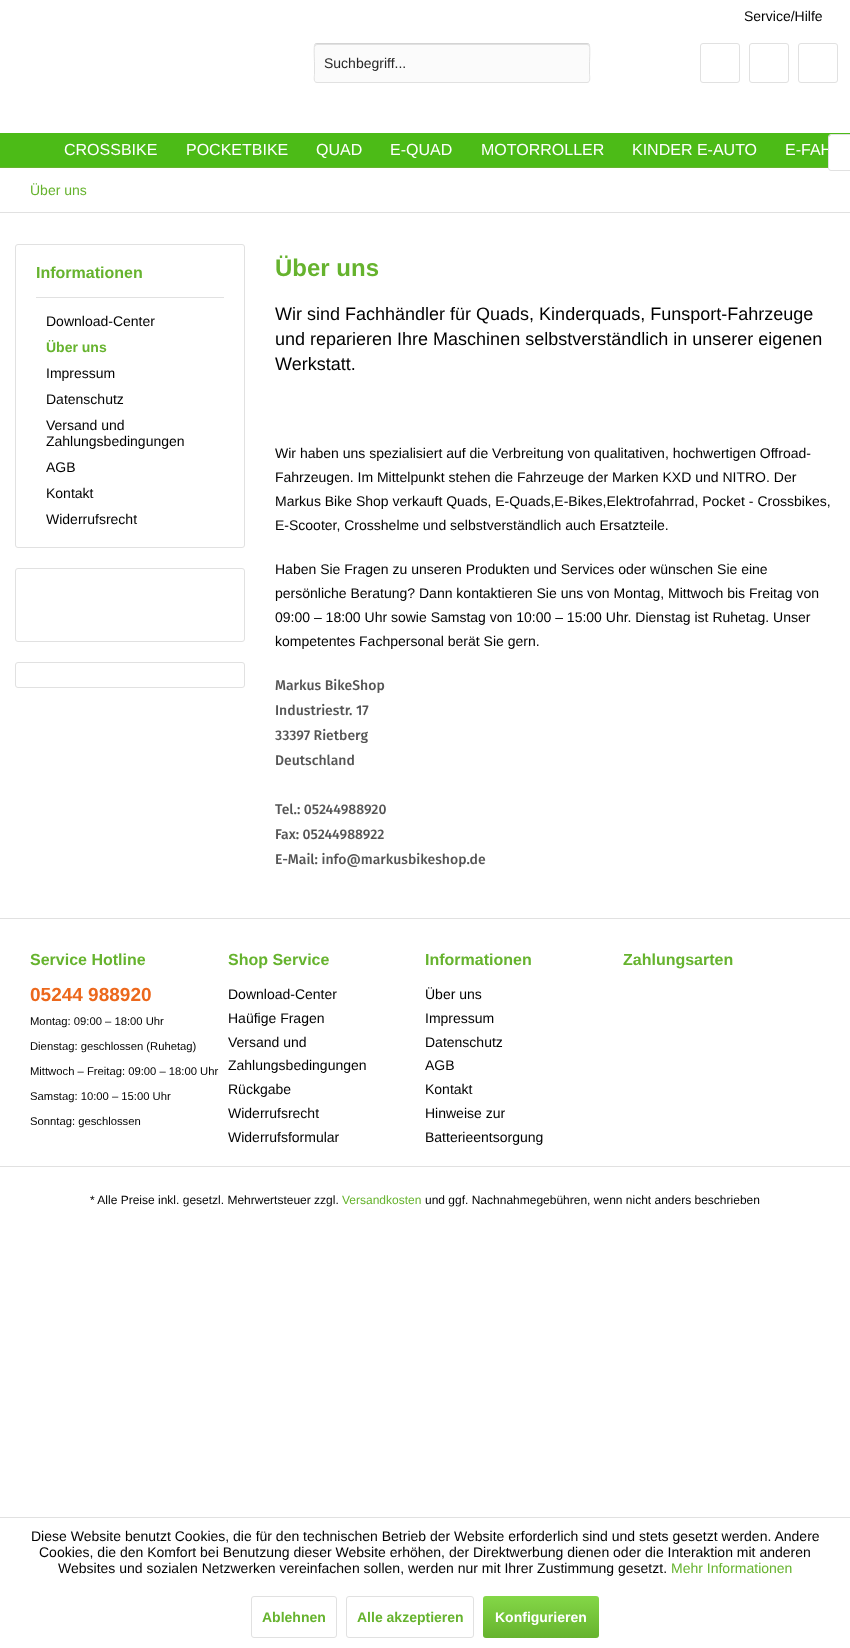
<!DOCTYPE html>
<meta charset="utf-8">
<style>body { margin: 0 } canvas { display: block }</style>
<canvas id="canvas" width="850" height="1648"></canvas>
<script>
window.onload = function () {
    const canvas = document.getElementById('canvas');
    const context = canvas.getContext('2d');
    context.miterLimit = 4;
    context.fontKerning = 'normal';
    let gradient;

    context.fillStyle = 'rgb(255, 255, 255)';
    context.fillRect(0, 0, 850, 1648);
    context.fillStyle = 'rgb(251, 251, 251)';
    context.beginPath();
    context.roundRect(314, 43, 276, 40, 3);
    context.fill();
    context.fillStyle = 'rgb(225, 225, 225)';
    context.beginPath();
    context.moveTo(317, 45);
    context.lineTo(587, 45);
    context.bezierCurveTo(588, 45, 589, 46, 589, 47);
    context.bezierCurveTo(589, 46, 589, 44, 587, 44);
    context.lineTo(317, 44);
    context.lineTo(315, 45);
    context.lineTo(315, 47);
    context.bezierCurveTo(315, 46, 316, 45, 317, 45);
    context.closePath();
    context.fill();
    context.beginPath();
    context.moveTo(315, 44);
    context.lineTo(317, 43.5);
    context.lineTo(587, 43.5);
    context.lineTo(589, 44);
    context.strokeStyle = 'rgb(212, 212, 212)';
    context.stroke();
    context.beginPath();
    context.moveTo(589, 44);
    context.bezierCurveTo(590.5, 46, 589.5, 60, 589.5, 63);
    context.lineTo(589.5, 74.5);
    context.bezierCurveTo(589.5, 76, 591, 82.5, 587, 82.5);
    context.lineTo(317, 82.5);
    context.bezierCurveTo(313, 82.5, 314.5, 76, 314.5, 74.5);
    context.lineTo(314.5, 63);
    context.bezierCurveTo(314.5, 60, 313.5, 46, 315, 44);
    context.strokeStyle = 'rgb(225, 225, 225)';
    context.stroke();
    context.beginPath();
    context.roundRect(700.5, 43.5, 39, 39, 2.5);
    context.stroke();
    context.beginPath();
    context.roundRect(749.5, 43.5, 39, 39, 2.5);
    context.stroke();
    context.beginPath();
    context.roundRect(798.5, 43.5, 39, 39, 2.5);
    context.stroke();
    context.fillStyle = 'rgb(76, 187, 23)';
    context.fillRect(0, 133, 850, 34);
    context.fillStyle = 'rgb(102, 179, 46)';
    context.fillRect(0, 167, 828, 1);
    context.fillStyle = 'rgb(255, 255, 255)';
    context.beginPath();
    context.roundRect(829, 135, 21, 35, [2, 0, 0, 2]);
    context.fill();
    context.fillStyle = 'rgb(225, 225, 225)';
    context.fillRect(0, 212, 850, 1);
    context.beginPath();
    context.roundRect(15.5, 244.5, 229, 303, 2.5);
    context.stroke();
    context.fillRect(36, 297, 188, 1);
    context.beginPath();
    context.roundRect(15.5, 568.5, 229, 73, 2.5);
    context.stroke();
    context.beginPath();
    context.roundRect(15.5, 662.5, 229, 25, 2.5);
    context.stroke();
    context.fillRect(0, 918, 850, 1);
    context.fillRect(0, 1166, 850, 1);
    context.fillRect(0, 1517, 850, 1);
    context.beginPath();
    context.roundRect(251.5, 1596.5, 85, 41, 2.5);
    context.stroke();
    context.beginPath();
    context.roundRect(346.5, 1596.5, 127, 41, 2.5);
    context.stroke();
    gradient = context.createLinearGradient(541, 1596, 541, 1638);
    gradient.addColorStop(0, 'rgb(132, 215, 71)');
    gradient.addColorStop(1, 'rgb(102, 179, 46)');
    context.fillStyle = gradient;
    context.beginPath();
    context.roundRect(483, 1596, 116, 42, 3);
    context.fill();
    context.font = '14px Liberation Sans';
    context.fillStyle = 'rgb(0, 0, 0)';
    context.fillText('Service/Hilfe', 744, 21);
    context.fillStyle = 'rgb(38, 38, 38)';
    context.fillText('Suchbegriff...', 324, 68);
    context.font = '16px Liberation Sans';
    context.fillStyle = 'rgb(255, 255, 255)';
    context.fillText('CROSSBIKE', 64, 155);
    context.fillText('POCKETBIKE', 186, 155);
    context.fillText('QUAD', 316, 155);
    context.fillText('E-QUAD', 390, 155);
    context.fillText('MOTORROLLER', 481, 155);
    context.fillText('KINDER E-AUTO', 632, 155);
    context.fillText('E-FAH', 785, 155);
    context.fillStyle = 'rgb(225, 225, 225)';
    context.beginPath();
    context.moveTo(831, 134);
    context.lineTo(850, 134);
    context.lineTo(850, 171);
    context.lineTo(831, 171);
    context.bezierCurveTo(829.5, 171, 828, 169.5, 828, 168);
    context.lineTo(828, 137);
    context.bezierCurveTo(828, 135.5, 829.5, 134, 831, 134);
    context.closePath();
    context.moveTo(831, 135);
    context.lineTo(850, 135);
    context.lineTo(850, 170);
    context.lineTo(831, 170);
    context.bezierCurveTo(830, 170, 829, 169, 829, 168);
    context.lineTo(829, 137);
    context.bezierCurveTo(829, 136, 830, 135, 831, 135);
    context.closePath();
    context.fill('evenodd');
    context.font = '14px Liberation Sans';
    context.fillStyle = 'rgb(102, 179, 46)';
    context.fillText('Über uns', 30, 195);
    context.font = 'bold 16px Liberation Sans';
    context.fillText('Informationen', 36, 278);
    context.font = '14px Liberation Sans';
    context.fillStyle = 'rgb(0, 0, 0)';
    context.fillText('Download-Center', 46, 326);
    context.font = 'bold 14px Liberation Sans';
    context.fillStyle = 'rgb(102, 179, 46)';
    context.fillText('Über uns', 46, 352);
    context.font = '14px Liberation Sans';
    context.fillStyle = 'rgb(0, 0, 0)';
    context.fillText('Impressum', 46, 378);
    context.fillText('Datenschutz', 46, 404);
    context.fillText('Versand und', 46, 430);
    context.fillText('Zahlungsbedingungen', 46, 446);
    context.fillText('AGB', 46, 472);
    context.fillText('Kontakt', 46, 498);
    context.fillText('Widerrufsrecht', 46, 524);
    context.font = 'bold 24px Liberation Sans';
    context.fillStyle = 'rgb(102, 179, 46)';
    context.fillText('Über uns', 275, 276);
    context.font = '18px Liberation Sans';
    context.fillStyle = 'rgb(0, 0, 0)';
    context.fillText('Wir sind Fachhändler für Quads, Kinderquads, Funsport-Fahrzeuge', 275, 320);
    context.fillText('und reparieren Ihre Maschinen selbstverständlich in unserer eigenen', 275, 345);
    context.fillText('Werkstatt.', 275, 370);
    context.font = '14px Liberation Sans';
    context.fillText('Wir haben uns spezialisiert auf die Verbreitung von qualitativen, hochwertigen Offroad-', 275, 458);
    context.fillText('Fahrzeugen. Im Mittelpunkt stehen die Fahrzeuge der Marken KXD und NITRO. Der', 275, 482);
    context.fillText('Markus Bike Shop verkauft Quads, E-Quads,E-Bikes,Elektrofahrrad, Pocket - Crossbikes,', 275, 506);
    context.fillText('E-Scooter, Crosshelme und selbstverständlich auch Ersatzteile.', 275, 530);
    context.fillText('Haben Sie Fragen zu unseren Produkten und Services oder wünschen Sie eine', 275, 574);
    context.fillText('persönliche Beratung? Dann kontaktieren Sie uns von Montag, Mittwoch bis Freitag von', 275, 598);
    context.fillText('09:00 – 18:00 Uhr sowie Samstag von 10:00 – 15:00 Uhr. Dienstag ist Ruhetag. Unser', 275, 622);
    context.fillText('kompetentes Fachpersonal berät Sie gern.', 275, 646);
    context.font = '500 14px Fira Sans';
    context.fillStyle = 'rgb(85, 85, 85)';
    context.fillText('Markus BikeShop', 275, 690);
    context.fillText('Industriestr. 17', 275, 715);
    context.fillText('33397 Rietberg', 275, 740);
    context.fillText('Deutschland', 275, 765);
    context.fillText('Tel.: 05244988920', 275, 814);
    context.fillText('Fax: 05244988922', 275, 839);
    context.fillText('E-Mail: info@markusbikeshop.de', 275, 864);
    context.font = 'bold 16px Liberation Sans';
    context.fillStyle = 'rgb(102, 179, 46)';
    context.fillText('Service Hotline', 30, 965);
    context.font = 'bold 19px Liberation Sans';
    context.fillStyle = 'rgb(236, 104, 28)';
    context.fillText('05244 988920', 30, 1001);
    context.font = '11.25px Liberation Sans';
    context.fillStyle = 'rgb(0, 0, 0)';
    context.fillText('Montag: 09:00 – 18:00 Uhr', 30, 1025);
    context.fillText('Dienstag: geschlossen (Ruhetag)', 30, 1050);
    context.fillText('Mittwoch – Freitag: 09:00 – 18:00 Uhr', 30, 1075);
    context.fillText('Samstag: 10:00 – 15:00 Uhr', 30, 1100);
    context.fillText('Sonntag: geschlossen', 30, 1125);
    context.font = 'bold 16px Liberation Sans';
    context.fillStyle = 'rgb(102, 179, 46)';
    context.fillText('Shop Service', 228, 965);
    context.font = '14px Liberation Sans';
    context.fillStyle = 'rgb(0, 0, 0)';
    context.fillText('Download-Center', 228, 999);
    context.fillText('Haüfige Fragen', 228, 1023);
    context.fillText('Versand und', 228, 1047);
    context.fillText('Zahlungsbedingungen', 228, 1070);
    context.fillText('Rückgabe', 228, 1094);
    context.fillText('Widerrufsrecht', 228, 1118);
    context.fillText('Widerrufsformular', 228, 1142);
    context.font = 'bold 16px Liberation Sans';
    context.fillStyle = 'rgb(102, 179, 46)';
    context.fillText('Informationen', 425, 965);
    context.font = '14px Liberation Sans';
    context.fillStyle = 'rgb(0, 0, 0)';
    context.fillText('Über uns', 425, 999);
    context.fillText('Impressum', 425, 1023);
    context.fillText('Datenschutz', 425, 1047);
    context.fillText('AGB', 425, 1070);
    context.fillText('Kontakt', 425, 1094);
    context.fillText('Hinweise zur', 425, 1118);
    context.fillText('Batterieentsorgung', 425, 1142);
    context.font = 'bold 16px Liberation Sans';
    context.fillStyle = 'rgb(102, 179, 46)';
    context.fillText('Zahlungsarten', 623, 965);
    context.font = '12px Liberation Sans';
    context.fillStyle = 'rgb(0, 0, 0)';
    context.fillText('* Alle Preise inkl. gesetzl. Mehrwertsteuer zzgl.', 90, 1204);
    context.fillStyle = 'rgb(102, 179, 46)';
    context.fillText('Versandkosten', 342, 1204);
    context.fillStyle = 'rgb(0, 0, 0)';
    context.fillText('und ggf. Nachnahmegebühren, wenn nicht anders beschrieben', 425, 1204);
    context.font = '14px Liberation Sans';
    context.fillText('Diese Website benutzt Cookies, die für den technischen Betrieb der Website erforderlich sind und stets gesetzt werden. Andere', 31, 1541);
    context.fillText('Cookies, die den Komfort bei Benutzung dieser Website erhöhen, der Direktwerbung dienen oder die Interaktion mit anderen', 39, 1557);
    context.fillText('Websites und sozialen Netzwerken vereinfachen sollen, werden nur mit Ihrer Zustimmung gesetzt.', 58, 1573);
    context.fillStyle = 'rgb(102, 179, 46)';
    context.fillText('Mehr Informationen', 671, 1573);
    context.font = 'bold 14px Liberation Sans';
    context.fillText('Ablehnen', 262, 1622);
    context.fillText('Alle akzeptieren', 357, 1622);
    context.fillStyle = 'rgb(255, 255, 255)';
    context.fillText('Konfigurieren', 495, 1622);
};
</script>
